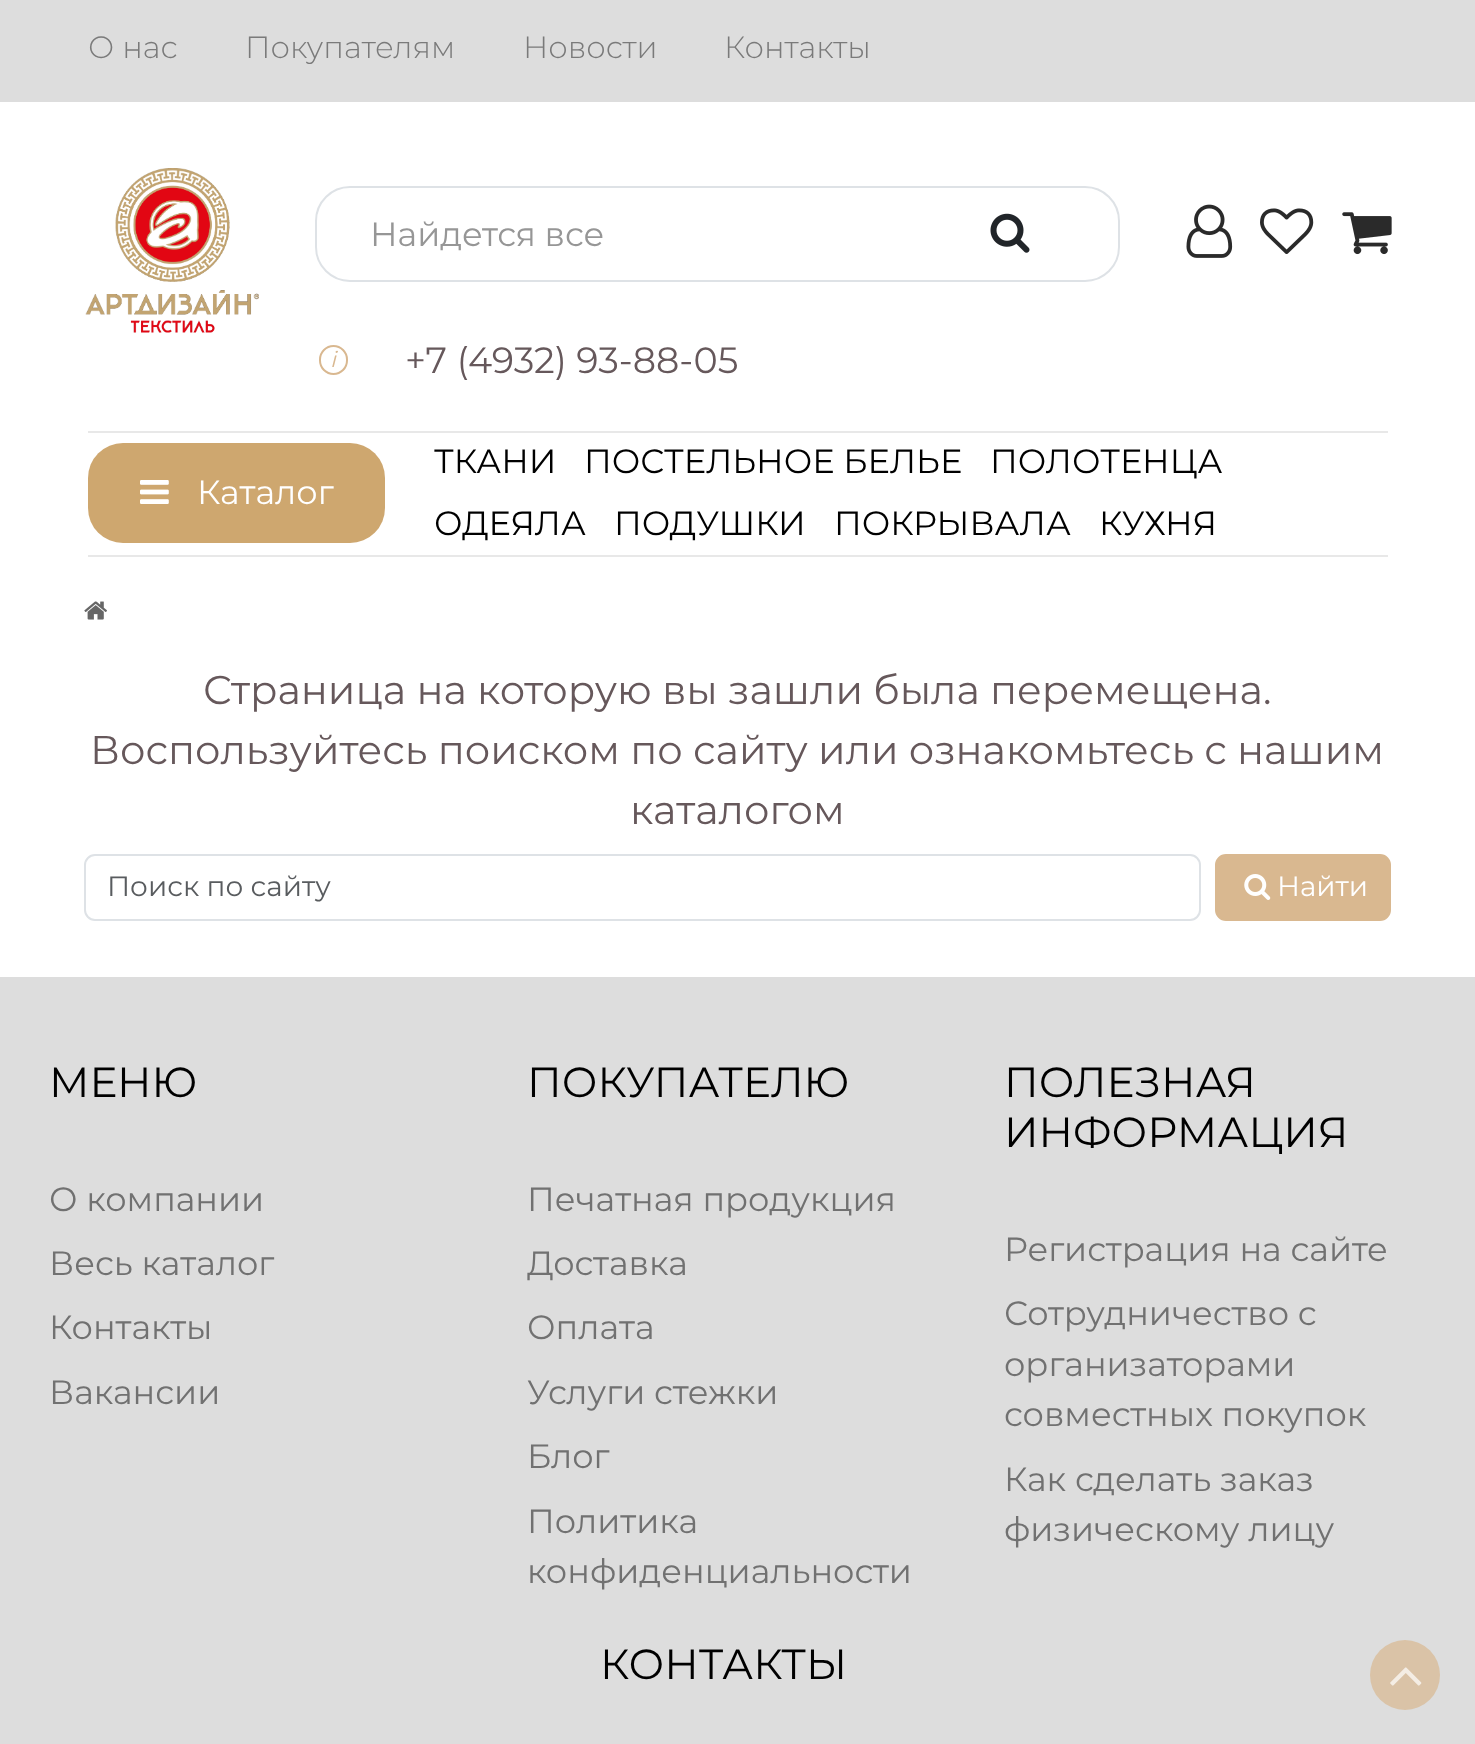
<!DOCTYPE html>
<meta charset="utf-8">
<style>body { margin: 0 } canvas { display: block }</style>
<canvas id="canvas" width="1475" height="1744"></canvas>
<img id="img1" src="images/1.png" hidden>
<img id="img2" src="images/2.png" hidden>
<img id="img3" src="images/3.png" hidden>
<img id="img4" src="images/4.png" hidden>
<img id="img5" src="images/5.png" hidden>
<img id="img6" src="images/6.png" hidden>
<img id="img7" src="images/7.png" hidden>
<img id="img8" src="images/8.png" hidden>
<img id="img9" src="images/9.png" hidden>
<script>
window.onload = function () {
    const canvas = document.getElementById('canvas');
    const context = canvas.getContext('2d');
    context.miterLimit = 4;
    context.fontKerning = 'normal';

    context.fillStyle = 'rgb(255, 255, 255)';
    context.fillRect(0, 0, 1475, 1744);
    context.fillStyle = 'rgb(221, 221, 221)';
    context.fillRect(0, 0, 1475, 102);
    context.drawImage(document.getElementById('img1'), 85, 168, 174, 165);
    context.beginPath();
    context.roundRect(316, 187, 803, 94, 34);
    context.strokeStyle = 'rgb(222, 226, 230)';
    context.lineWidth = 2;
    context.stroke();
    context.drawImage(document.getElementById('img2'), 990, 213, 40, 40);
    context.drawImage(document.getElementById('img3'), 1186, 204, 47, 54);
    context.drawImage(document.getElementById('img4'), 1260, 208, 54, 46);
    context.drawImage(document.getElementById('img5'), 1342, 212, 50, 43);
    context.beginPath();
    context.roundRect(320, 346, 27, 28, 13.5);
    context.strokeStyle = 'rgb(217, 184, 144)';
    context.stroke();
    context.fillStyle = 'rgb(232, 232, 232)';
    context.fillRect(88, 431, 1300, 2);
    context.fillRect(88, 555, 1300, 2);
    context.fillStyle = 'rgb(206, 167, 111)';
    context.beginPath();
    context.roundRect(88, 443, 297, 100, 35);
    context.fill();
    context.drawImage(document.getElementById('img6'), 140, 480, 29, 24);
    context.drawImage(document.getElementById('img7'), 84, 601, 23, 19);
    context.beginPath();
    context.roundRect(85, 855, 1115, 65, 10);
    context.strokeStyle = 'rgb(222, 226, 230)';
    context.stroke();
    context.fillStyle = 'rgb(217, 184, 144)';
    context.beginPath();
    context.roundRect(1216, 855, 174, 65, 10);
    context.fill();
    context.strokeStyle = 'rgb(217, 184, 144)';
    context.stroke();
    context.drawImage(document.getElementById('img8'), 1244, 874, 27, 26);
    context.fillStyle = 'rgb(221, 221, 221)';
    context.fillRect(0, 977, 1475, 767);
    context.fillStyle = 'rgb(218, 195, 167)';
    context.beginPath();
    context.arc(1405, 1675, 35, 0, 2 * Math.PI);
    context.fill();
    context.drawImage(document.getElementById('img9'), 1390, 1667, 32, 19);
    context.font = '300 30.75px Montserrat';
    context.fillStyle = 'rgb(122, 122, 122)';
    context.fillText('О нас', 88, 58);
    context.fillText('Покупателям', 245, 58);
    context.fillText('Новости', 523, 58);
    context.fillText('Контакты', 724, 58);
    context.font = '33.6px Montserrat';
    context.fillStyle = 'rgb(150, 150, 150)';
    context.fillText('Найдется все', 370, 246);
    context.font = 'italic 22px Montserrat';
    context.fillStyle = 'rgb(217, 184, 144)';
    context.fillText('i', 330, 367);
    context.font = '36.5px Montserrat';
    context.fillStyle = 'rgb(102, 88, 91)';
    context.fillText('+7 (4932) 93-88-05', 405, 373);
    context.font = '33.6px Montserrat';
    context.fillStyle = 'rgb(255, 255, 255)';
    context.fillText('Каталог', 197, 504);
    context.fillStyle = 'rgb(0, 0, 0)';
    context.fillText('ТКАНИ', 434, 473);
    context.fillText('ПОСТЕЛЬНОЕ БЕЛЬЕ', 584, 473);
    context.fillText('ПОЛОТЕНЦА', 990, 473);
    context.fillText('ОДЕЯЛА', 434, 535);
    context.fillText('ПОДУШКИ', 614, 535);
    context.fillText('ПОКРЫВАЛА', 834, 535);
    context.fillText('КУХНЯ', 1099, 535);
    context.wordSpacing = '-0.25px';
    context.font = '40.1px Montserrat';
    context.fillStyle = 'rgb(102, 88, 91)';
    context.fillText('Страница на которую вы зашли была перемещена.', 203, 704);
    context.fillText('Воспользуйтесь поиском по сайту или ознакомьтесь с нашим', 90, 764);
    context.wordSpacing = '0px';
    context.fillText('каталогом', 630, 824);
    context.font = '28px Montserrat';
    context.fillStyle = 'rgb(89, 92, 95)';
    context.fillText('Поиск по сайту', 107, 896);
    context.fillStyle = 'rgb(255, 255, 255)';
    context.fillText('Найти', 1277, 896);
    context.font = '42px Montserrat';
    context.fillStyle = 'rgb(0, 0, 0)';
    context.fillText('МЕНЮ', 49, 1097);
    context.font = '33.6px Montserrat';
    context.fillStyle = 'rgb(113, 113, 113)';
    context.fillText('О компании', 49, 1211);
    context.fillText('Весь каталог', 49, 1275);
    context.fillText('Контакты', 49, 1339);
    context.fillText('Вакансии', 49, 1404);
    context.font = '42px Montserrat';
    context.fillStyle = 'rgb(0, 0, 0)';
    context.fillText('ПОКУПАТЕЛЮ', 527, 1097);
    context.font = '33.6px Montserrat';
    context.fillStyle = 'rgb(113, 113, 113)';
    context.fillText('Печатная продукция', 527, 1211);
    context.fillText('Доставка', 527, 1275);
    context.fillText('Оплата', 527, 1339);
    context.fillText('Услуги стежки', 527, 1404);
    context.fillText('Блог', 527, 1468);
    context.fillText('Политика', 527, 1533);
    context.fillText('конфиденциальности', 527, 1583);
    context.font = '42px Montserrat';
    context.fillStyle = 'rgb(0, 0, 0)';
    context.fillText('ПОЛЕЗНАЯ', 1004, 1097);
    context.fillText('ИНФОРМАЦИЯ', 1004, 1147);
    context.font = '33.6px Montserrat';
    context.fillStyle = 'rgb(113, 113, 113)';
    context.fillText('Регистрация на сайте', 1004, 1261);
    context.fillText('Сотрудничество с', 1004, 1325);
    context.fillText('организаторами', 1004, 1376);
    context.fillText('совместных покупок', 1004, 1426);
    context.fillText('Как сделать заказ', 1004, 1491);
    context.fillText('физическому лицу', 1004, 1541);
    context.font = '42px Montserrat';
    context.fillStyle = 'rgb(0, 0, 0)';
    context.fillText('КОНТАКТЫ', 600, 1679);
};
</script>
